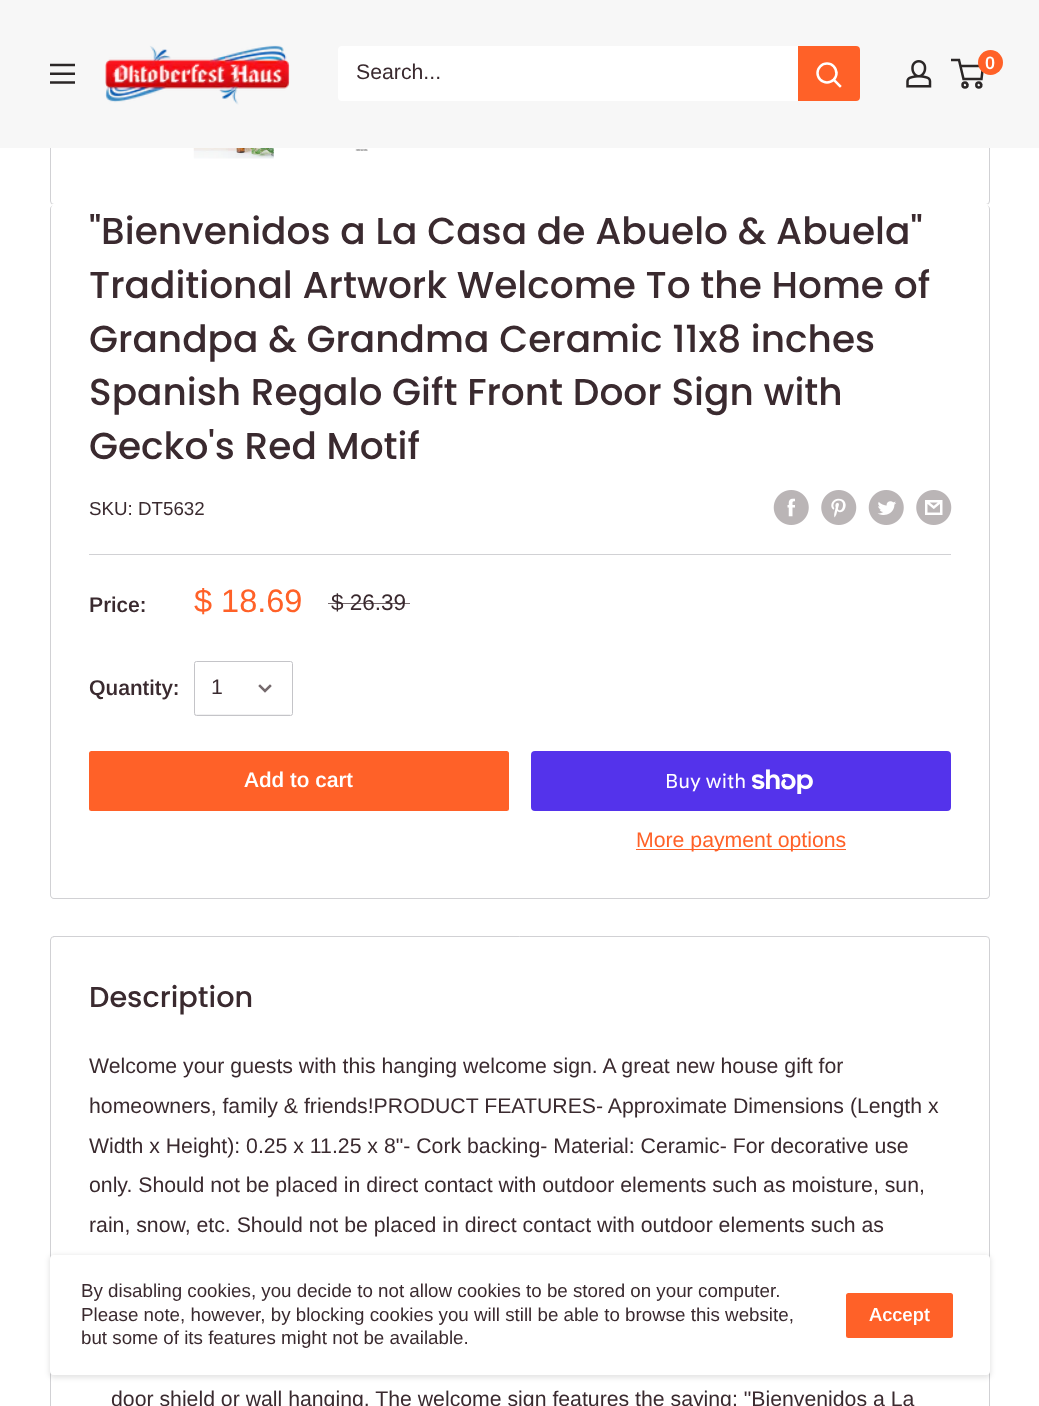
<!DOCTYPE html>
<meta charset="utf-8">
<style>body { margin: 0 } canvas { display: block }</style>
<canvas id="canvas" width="1039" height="1406"></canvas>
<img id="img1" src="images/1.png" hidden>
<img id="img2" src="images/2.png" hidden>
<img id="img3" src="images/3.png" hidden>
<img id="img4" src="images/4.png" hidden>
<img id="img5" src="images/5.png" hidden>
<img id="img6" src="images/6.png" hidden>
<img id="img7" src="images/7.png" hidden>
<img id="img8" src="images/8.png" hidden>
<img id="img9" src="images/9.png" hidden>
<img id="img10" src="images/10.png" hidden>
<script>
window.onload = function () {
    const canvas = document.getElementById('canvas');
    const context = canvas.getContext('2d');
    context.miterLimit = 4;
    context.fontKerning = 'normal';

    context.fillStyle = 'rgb(255, 255, 255)';
    context.fillRect(0, 0, 1039, 1406);
    context.beginPath();
    context.roundRect(50.5, -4.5, 939, 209, 3.5);
    context.strokeStyle = 'rgb(209, 209, 212)';
    context.stroke();
    context.fillStyle = 'rgb(247, 247, 247)';
    context.fillRect(0, 0, 1039, 148);
    context.drawImage(document.getElementById('img1'), 50, 63, 25, 21);
    context.drawImage(document.getElementById('img2'), 105, 45, 185, 60);
    context.fillStyle = 'rgb(255, 255, 255)';
    context.beginPath();
    context.roundRect(338, 46, 522, 55, 4);
    context.fill();
    context.fillStyle = 'rgb(255, 97, 40)';
    context.beginPath();
    context.roundRect(798, 46, 62, 55, [0, 4, 4, 0]);
    context.fill();
    context.beginPath();
    context.moveTo(840, 86);
    context.lineTo(834, 80);
    context.strokeStyle = 'rgb(255, 255, 255)';
    context.lineWidth = 2.5;
    context.lineCap = 'square';
    context.stroke();
    context.beginPath();
    context.arc(827, 73, 9.5, 0, 2 * Math.PI);
    context.stroke();
    context.drawImage(document.getElementById('img3'), 906, 60, 26, 28);
    context.beginPath();
    context.arc(965, 85, 2.5, 0, 2 * Math.PI);
    context.strokeStyle = 'rgb(43, 39, 39)';
    context.stroke();
    context.beginPath();
    context.arc(978.8, 85, 2.5, 0, 2 * Math.PI);
    context.stroke();
    context.beginPath();
    context.moveTo(960.5, 66);
    context.lineTo(983, 66);
    context.lineTo(981.5, 79);
    context.lineTo(963.5, 79);
    context.lineTo(959, 60);
    context.lineTo(951, 60);
    context.lineCap = 'butt';
    context.stroke();
    context.beginPath();
    context.arc(990.5, 62.5, 12.5, 0, 2 * Math.PI);
    context.fill();
    context.drawImage(document.getElementById('img4'), 193, 148, 81, 11);
    context.drawImage(document.getElementById('img5'), 300, 148, 72, 3);
    context.fillStyle = 'rgb(255, 255, 255)';
    context.beginPath();
    context.moveTo(54, 204);
    context.bezierCurveTo(51, 204, 50, 206, 50, 209);
    context.bezierCurveTo(50, 207, 52, 205, 54, 205);
    context.lineTo(986, 205);
    context.bezierCurveTo(988, 205, 990, 207, 990, 209);
    context.bezierCurveTo(990, 206, 989, 204, 986, 204);
    context.closePath();
    context.fill();
    context.fillStyle = 'rgb(209, 209, 212)';
    context.beginPath();
    context.moveTo(54, 205);
    context.lineTo(986, 205);
    context.bezierCurveTo(988, 205, 990, 207, 990, 209);
    context.lineTo(990, 895);
    context.bezierCurveTo(990, 897, 988, 899, 986, 899);
    context.lineTo(54, 899);
    context.bezierCurveTo(52, 899, 50, 897, 50, 895);
    context.lineTo(50, 209);
    context.bezierCurveTo(50, 207, 52, 205, 54, 205);
    context.closePath();
    context.moveTo(54, 205);
    context.lineTo(986, 205);
    context.bezierCurveTo(988, 205, 989, 207, 989, 209);
    context.lineTo(989, 895);
    context.bezierCurveTo(989, 896, 988, 898, 986, 898);
    context.lineTo(54, 898);
    context.bezierCurveTo(52, 898, 51, 896, 51, 895);
    context.lineTo(51, 209);
    context.bezierCurveTo(51, 207, 52, 205, 54, 205);
    context.closePath();
    context.fill('evenodd');
    context.drawImage(document.getElementById('img6'), 773, 490, 36, 35);
    context.drawImage(document.getElementById('img7'), 821, 490, 36, 35);
    context.drawImage(document.getElementById('img8'), 868, 490, 36, 35);
    context.drawImage(document.getElementById('img9'), 916, 490, 36, 35);
    context.fillRect(89, 554, 862, 1);
    context.fillStyle = 'rgb(241, 241, 242)';
    context.beginPath();
    context.moveTo(195, 713);
    context.lineTo(195, 715);
    context.lineTo(290, 715);
    context.lineTo(291, 713);
    context.lineTo(290, 714);
    context.lineTo(200, 714);
    context.bezierCurveTo(199, 714, 196, 715, 195, 713);
    context.closePath();
    context.fill();
    context.beginPath();
    context.roundRect(194.5, 661.5, 98, 54, 2);
    context.strokeStyle = 'rgb(196, 196, 200)';
    context.lineWidth = 1;
    context.stroke();
    context.beginPath();
    context.moveTo(270, 686);
    context.lineTo(265, 691);
    context.lineTo(260, 686);
    context.strokeStyle = 'rgb(117, 106, 109)';
    context.lineWidth = 2.5;
    context.lineCap = 'square';
    context.stroke();
    context.fillStyle = 'rgb(255, 97, 40)';
    context.beginPath();
    context.roundRect(89, 751, 420, 60, 2.5);
    context.fill();
    context.fillStyle = 'rgb(84, 51, 235)';
    context.beginPath();
    context.roundRect(531, 751, 420, 60, 4);
    context.fill();
    context.drawImage(document.getElementById('img10'), 751, 769, 62, 25);
    context.fillStyle = 'rgb(255, 97, 40)';
    context.fillRect(636, 849, 210, 1);
    context.beginPath();
    context.roundRect(50.5, 936.5, 939, 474, 3.5);
    context.strokeStyle = 'rgb(209, 209, 212)';
    context.lineWidth = 1;
    context.stroke();
    context.fillStyle = 'rgba(0, 0, 0, 0.1)';
    context.filter = 'blur(2.5px)';
    context.beginPath();
    context.roundRect(49, 1255, 942, 123, 5);
    context.fill();
    context.filter = 'none';
    context.fillStyle = 'rgb(255, 255, 255)';
    context.beginPath();
    context.roundRect(50, 1255, 940, 120, 4);
    context.fill();
    context.fillStyle = 'rgb(255, 97, 40)';
    context.beginPath();
    context.roundRect(846, 1293, 107, 45, 2.5);
    context.fill();
    context.font = '21.25px Arimo';
    context.fillStyle = 'rgb(58, 42, 47)';
    context.fillText('Search...', 356, 79);
    context.font = '600 18px Arimo';
    context.fillStyle = 'rgb(255, 255, 255)';
    context.fillText('0', 985, 69);
    context.font = '500 37.5px Poppins';
    context.fillStyle = 'rgb(58, 42, 47)';
    context.fillText('"Bienvenidos a La Casa de Abuelo & Abuela"', 89, 244);
    context.fillText('Traditional Artwork Welcome To the Home of', 89, 298);
    context.fillText('Grandpa & Grandma Ceramic 11x8 inches', 89, 352);
    context.fillText('Spanish Regalo Gift Front Door Sign with', 89, 405);
    context.fillText('Gecko\'s Red Motif', 89, 459);
    context.font = '18.75px Arimo';
    context.fillText('SKU: DT5632', 89, 515);
    context.font = '600 21.25px Arimo';
    context.fillText('Price:', 89, 612);
    context.font = '32.5px Arimo';
    context.fillStyle = 'rgb(255, 97, 40)';
    context.fillText('$ 18.69', 194, 612);
    context.font = '22.5px Arimo';
    context.fillStyle = 'rgb(58, 42, 47)';
    context.fillText('$ 26.39', 331, 610);
    context.fillStyle = 'rgba(58, 42, 47, 0.7)';
    context.fillRect(328, 603, 82, 1);
    context.font = '600 21.25px Arimo';
    context.fillStyle = 'rgb(58, 42, 47)';
    context.fillText('Quantity:', 89, 695);
    context.font = '21.25px Arimo';
    context.fillText('1', 211, 694);
    context.font = '600 21.25px Arimo';
    context.fillStyle = 'rgb(255, 255, 255)';
    context.fillText('Add to cart', 244, 787);
    context.font = '20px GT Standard';
    context.fillText('Buy with', 665, 788);
    context.font = '21.25px Arimo';
    context.fillStyle = 'rgb(255, 97, 40)';
    context.fillText('More payment options', 636, 847);
    context.font = '500 28.75px Poppins';
    context.fillStyle = 'rgb(58, 42, 47)';
    context.fillText('Description', 89, 1007);
    context.font = '21.25px Arimo';
    context.fillText('Welcome your guests with this hanging welcome sign. A great new house gift for', 89, 1073);
    context.fillText('homeowners, family & friends!PRODUCT FEATURES- Approximate Dimensions (Length x', 89, 1113);
    context.fillText('Width x Height): 0.25 x 11.25 x 8"- Cork backing- Material: Ceramic- For decorative use', 89, 1153);
    context.fillText('only. Should not be placed in direct contact with outdoor elements such as moisture, sun,', 89, 1192);
    context.fillText('rain, snow, etc. Should not be placed in direct contact with outdoor elements such as', 89, 1232);
    context.fillText('door shield or wall hanging. The welcome sign features the saying: "Bienvenidos a La', 111, 1406);
    context.font = '18.75px Arimo';
    context.fillText('By disabling cookies, you decide to not allow cookies to be stored on your computer.', 81, 1297);
    context.fillText('Please note, however, by blocking cookies you will still be able to browse this website,', 81, 1321);
    context.fillText('but some of its features might not be available.', 81, 1344);
    context.font = '600 18.75px Arimo';
    context.fillStyle = 'rgb(255, 255, 255)';
    context.fillText('Accept', 869, 1321);
};
</script>
